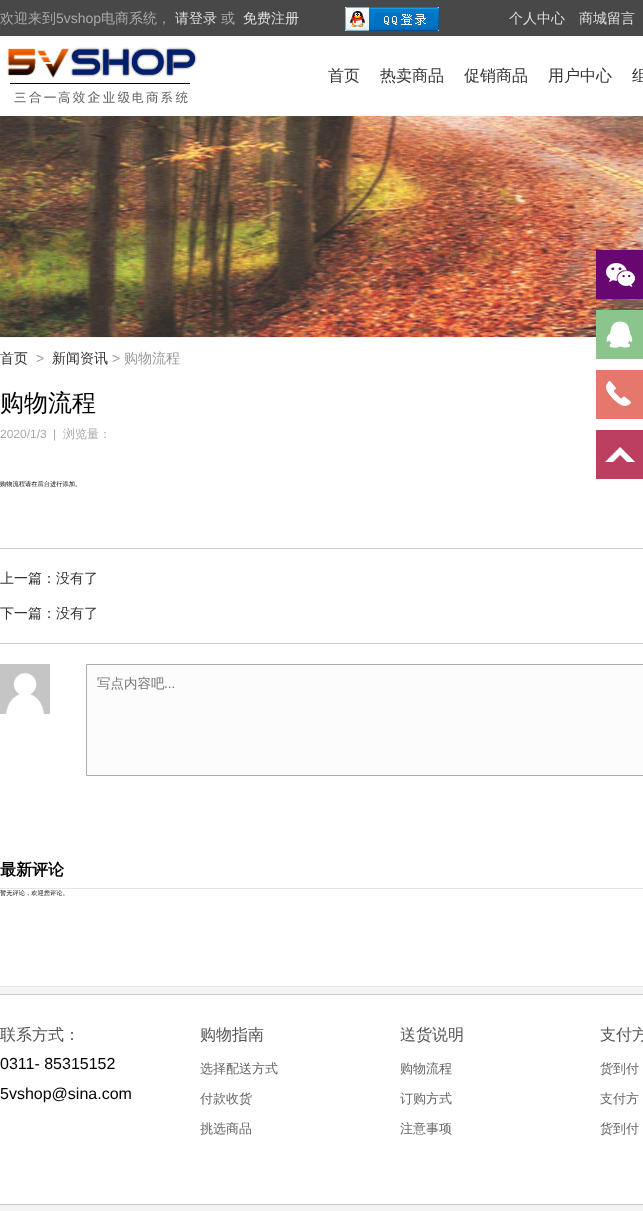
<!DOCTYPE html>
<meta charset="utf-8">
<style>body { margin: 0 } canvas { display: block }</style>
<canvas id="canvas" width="643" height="1211"></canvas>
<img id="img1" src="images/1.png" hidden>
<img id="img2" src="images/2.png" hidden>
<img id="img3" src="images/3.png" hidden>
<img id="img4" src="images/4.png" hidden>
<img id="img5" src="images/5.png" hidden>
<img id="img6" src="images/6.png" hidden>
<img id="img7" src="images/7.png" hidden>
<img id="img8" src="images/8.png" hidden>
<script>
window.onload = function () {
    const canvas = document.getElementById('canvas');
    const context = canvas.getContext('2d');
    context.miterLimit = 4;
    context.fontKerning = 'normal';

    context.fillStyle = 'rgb(244, 244, 244)';
    context.fillRect(0, 0, 643, 1211);
    context.fillStyle = 'rgb(72, 72, 72)';
    context.fillRect(0, 0, 643, 36);
    context.drawImage(document.getElementById('img1'), 345, 7, 94, 24);
    context.fillStyle = 'rgb(255, 255, 255)';
    context.fillRect(0, 36, 643, 80);
    context.drawImage(document.getElementById('img2'), 7, 47, 190, 57);
    context.drawImage(document.getElementById('img3'), 0, 116, 643, 221);
    context.fillRect(0, 338, 643, 648);
    context.fillStyle = 'rgb(230, 230, 230)';
    context.fillRect(0, 986, 643, 1);
    context.fillStyle = 'rgb(204, 204, 204)';
    context.fillRect(0, 548, 643, 1);
    context.fillRect(0, 643, 643, 1);
    context.drawImage(document.getElementById('img4'), 0, 664, 50, 50);
    context.fillStyle = 'rgb(252, 252, 252)';
    context.beginPath();
    context.rect(86.5, 664.5, 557, 111);
    context.fill();
    context.strokeStyle = 'rgb(172, 172, 172)';
    context.stroke();
    context.fillStyle = 'rgb(230, 230, 230)';
    context.fillRect(0, 888, 643, 1);
    context.drawImage(document.getElementById('img5'), 596, 250, 47, 49);
    context.drawImage(document.getElementById('img6'), 596, 310, 47, 49);
    context.drawImage(document.getElementById('img7'), 596, 370, 47, 49);
    context.drawImage(document.getElementById('img8'), 596, 430, 47, 49);
    context.fillStyle = 'rgb(255, 255, 255)';
    context.fillRect(0, 995, 643, 209);
    context.fillStyle = 'rgb(204, 204, 204)';
    context.fillRect(0, 994, 643, 1);
    context.fillRect(0, 1204, 643, 1);
    context.fillStyle = 'rgb(238, 239, 242)';
    context.fillRect(0, 1205, 643, 1);
    context.font = '500 14px WenQuanYi Zen Hei';
    context.fillStyle = 'rgb(170, 170, 170)';
    context.fillText('欢迎来到', 0, 23);
    context.font = '14px Liberation Sans';
    context.fillText('5vshop', 56, 23);
    context.font = '500 14px WenQuanYi Zen Hei';
    context.fillText('电商系统，', 101, 23);
    context.fillStyle = 'rgb(221, 221, 221)';
    context.fillText('请登录', 175, 23);
    context.fillStyle = 'rgb(170, 170, 170)';
    context.fillText('或', 221, 23);
    context.fillStyle = 'rgb(221, 221, 221)';
    context.fillText('免费注册', 243, 23);
    context.fillText('个人中心', 509, 23);
    context.fillText('商城留言', 579, 23);
    context.font = '500 16px WenQuanYi Zen Hei';
    context.fillStyle = 'rgb(51, 51, 51)';
    context.fillText('首页', 328, 81);
    context.fillText('热卖商品', 380, 81);
    context.fillText('促销商品', 464, 81);
    context.fillText('用户中心', 548, 81);
    context.fillText('组', 632, 81);
    context.font = '500 14px WenQuanYi Zen Hei';
    context.fillText('首页', 0, 363);
    context.font = '14px Liberation Sans';
    context.fillStyle = 'rgb(153, 153, 153)';
    context.fillText('>', 36, 363);
    context.font = '500 14px WenQuanYi Zen Hei';
    context.fillStyle = 'rgb(51, 51, 51)';
    context.fillText('新闻资讯', 52, 363);
    context.font = '14px Liberation Sans';
    context.fillStyle = 'rgb(153, 153, 153)';
    context.fillText('>', 112, 363);
    context.font = '500 14px WenQuanYi Zen Hei';
    context.fillText('购物流程', 124, 363);
    context.font = '500 24px WenQuanYi Zen Hei';
    context.fillStyle = 'rgb(0, 0, 0)';
    context.fillText('购物流程', 0, 411);
    context.font = '12px Liberation Sans';
    context.fillStyle = 'rgb(170, 170, 170)';
    context.fillText('2020/1/3', 0, 438);
    context.fillText('|', 53, 438);
    context.font = '500 12px WenQuanYi Zen Hei';
    context.fillText('浏览量：', 63, 438);
    context.font = '500 6.25px WenQuanYi Zen Hei';
    context.fillStyle = 'rgb(0, 0, 0)';
    context.fillText('购物流程请在后台进行添加。', 0, 486);
    context.font = '500 14px WenQuanYi Zen Hei';
    context.fillStyle = 'rgb(51, 51, 51)';
    context.fillText('上一篇：没有了', 0, 583);
    context.fillText('下一篇：没有了', 0, 618);
    context.font = '500 13.5px WenQuanYi Zen Hei';
    context.fillStyle = 'rgb(117, 117, 117)';
    context.fillText('写点内容吧', 97, 688);
    context.font = '13.5px Liberation Sans';
    context.fillText('...', 164, 688);
    context.font = 'bold 16px WenQuanYi Zen Hei';
    context.fillStyle = 'rgb(0, 0, 0)';
    context.fillText('最新评论', 0, 875);
    context.font = '500 6.25px WenQuanYi Zen Hei';
    context.fillText('暂无评论，欢迎您评论。', 0, 895);
    context.font = '500 16px WenQuanYi Zen Hei';
    context.fillStyle = 'rgb(84, 84, 84)';
    context.fillText('联系方式：', 0, 1040);
    context.font = '16px Liberation Sans';
    context.fillStyle = 'rgb(0, 0, 0)';
    context.fillText('0311- 85315152', 0, 1069);
    context.fillText('5vshop@sina.com', 0, 1099);
    context.font = '500 16px WenQuanYi Zen Hei';
    context.fillStyle = 'rgb(84, 84, 84)';
    context.fillText('购物指南', 200, 1040);
    context.font = '500 13px WenQuanYi Zen Hei';
    context.fillStyle = 'rgb(102, 102, 102)';
    context.fillText('选择配送方式', 200, 1073);
    context.fillText('付款收货', 200, 1103);
    context.fillText('挑选商品', 200, 1133);
    context.font = '500 16px WenQuanYi Zen Hei';
    context.fillStyle = 'rgb(84, 84, 84)';
    context.fillText('送货说明', 400, 1040);
    context.font = '500 13px WenQuanYi Zen Hei';
    context.fillStyle = 'rgb(102, 102, 102)';
    context.fillText('购物流程', 400, 1073);
    context.fillText('订购方式', 400, 1103);
    context.fillText('注意事项', 400, 1133);
    context.font = '500 16px WenQuanYi Zen Hei';
    context.fillStyle = 'rgb(84, 84, 84)';
    context.fillText('支付方', 600, 1040);
    context.font = '500 13px WenQuanYi Zen Hei';
    context.fillStyle = 'rgb(102, 102, 102)';
    context.fillText('货到付', 600, 1073);
    context.fillText('支付方', 600, 1103);
    context.fillText('货到付', 600, 1133);
};
</script>
